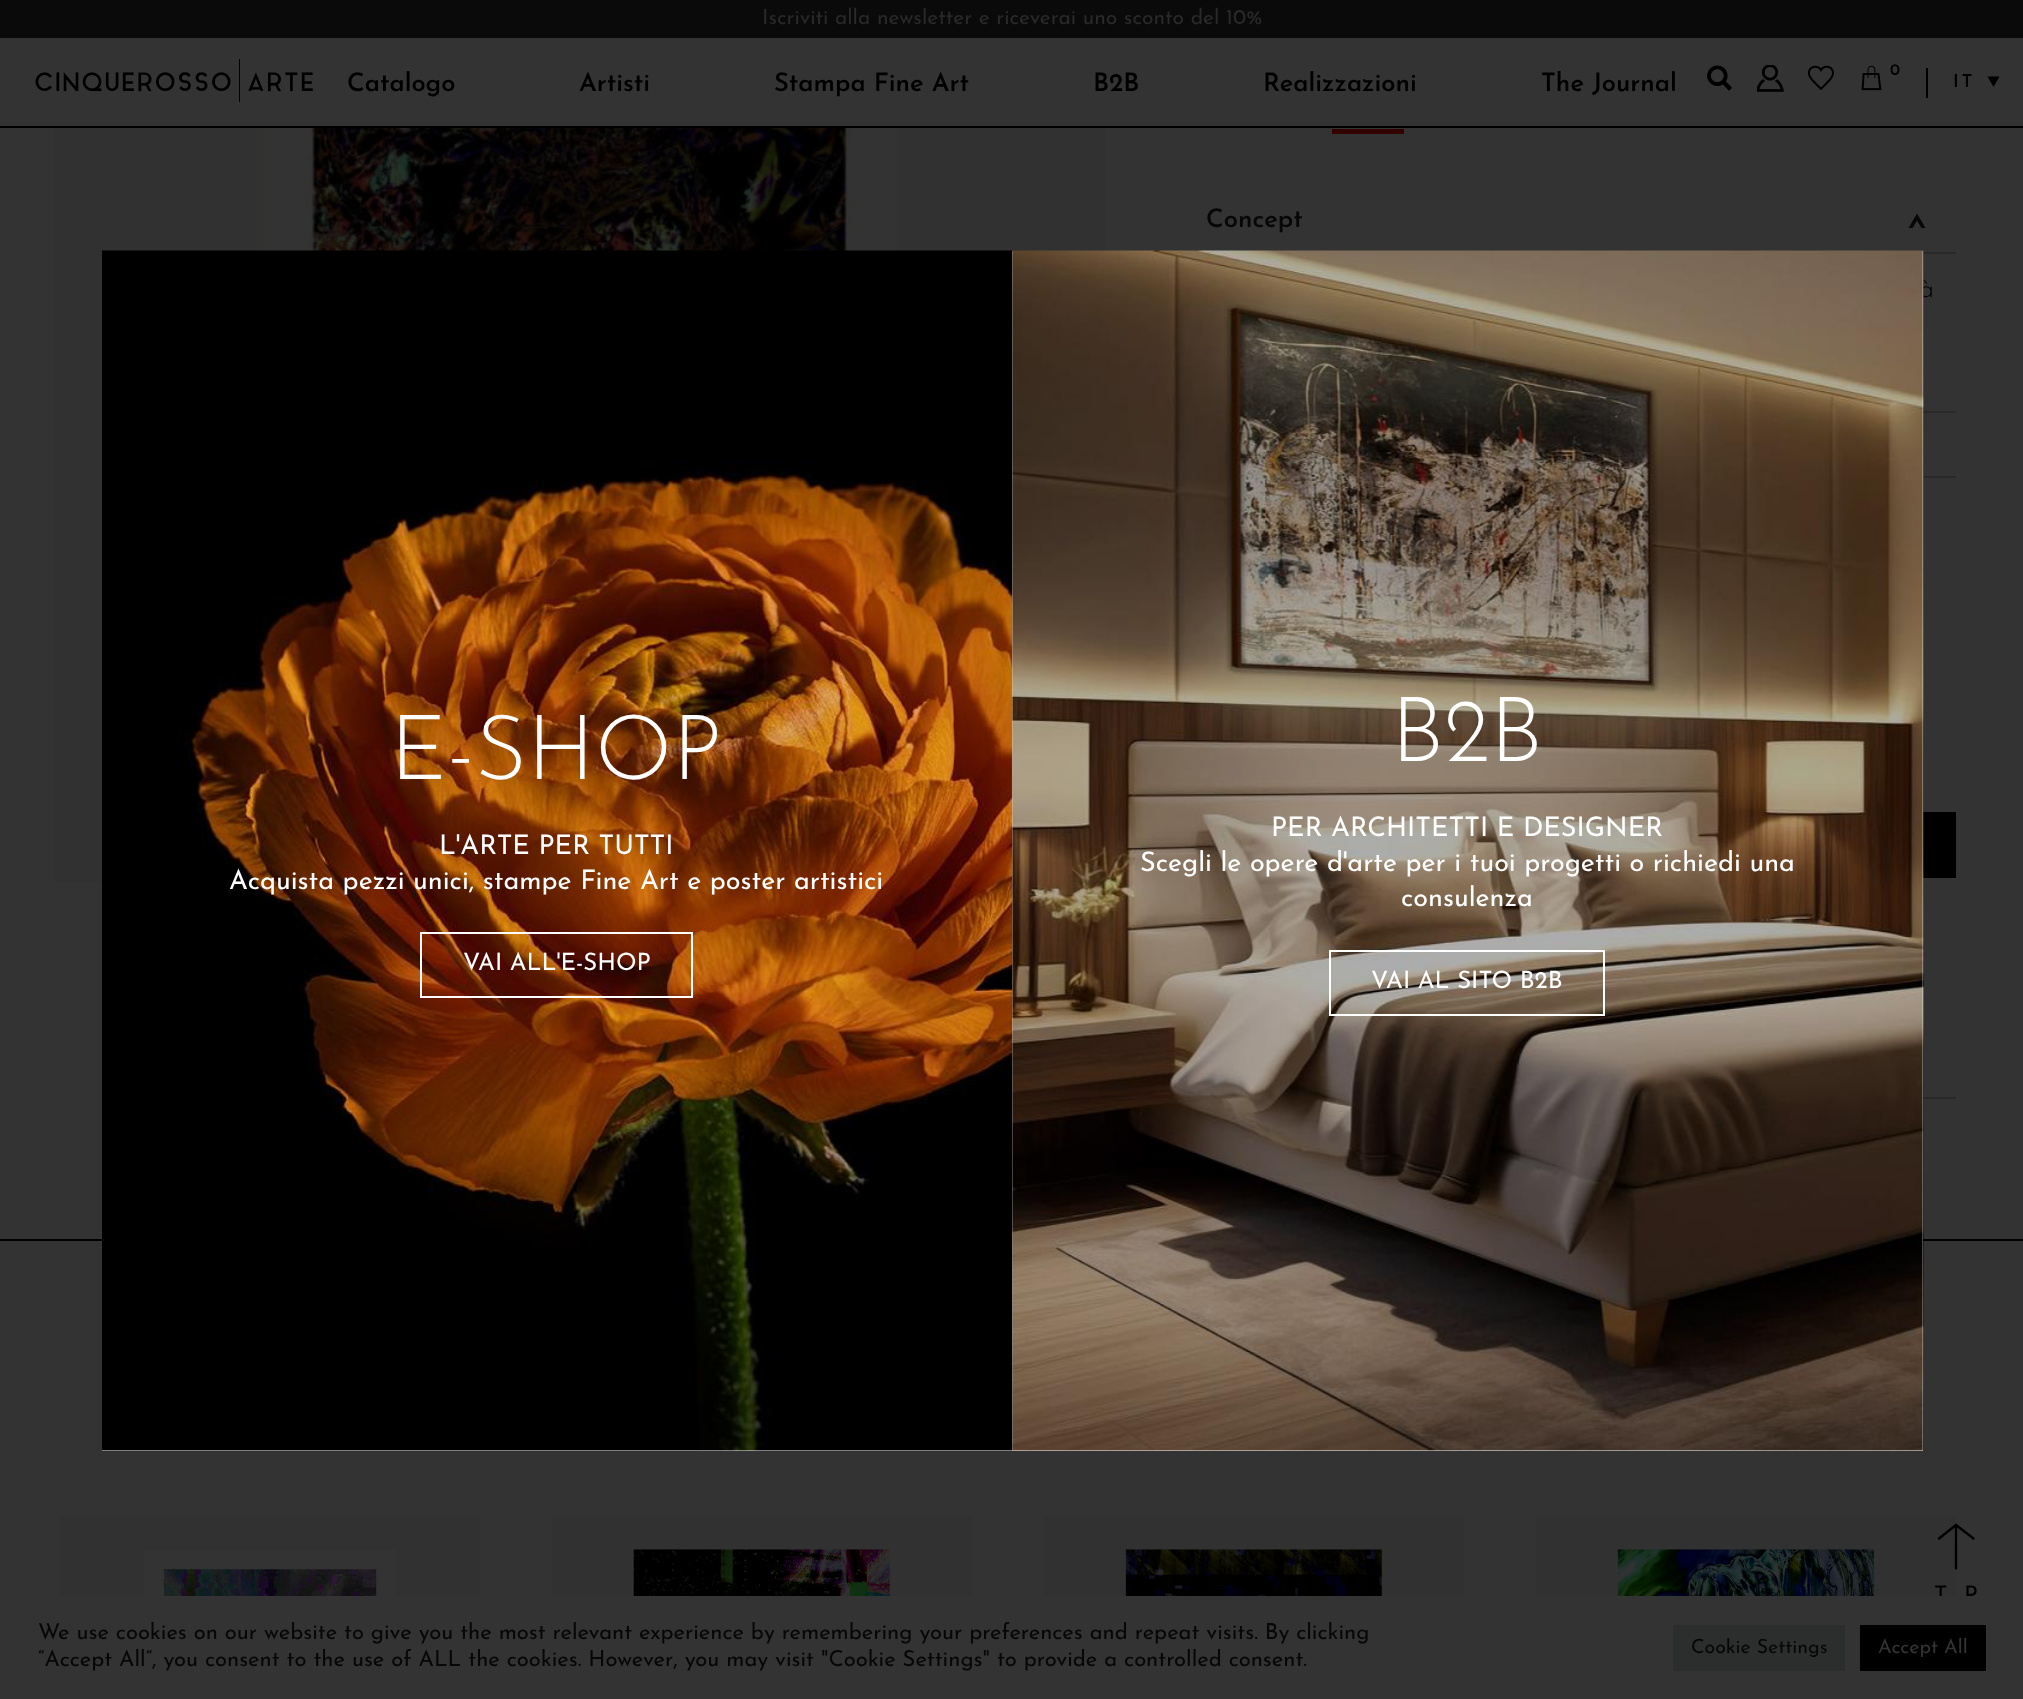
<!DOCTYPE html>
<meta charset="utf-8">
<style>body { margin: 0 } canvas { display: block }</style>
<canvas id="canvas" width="2023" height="1699"></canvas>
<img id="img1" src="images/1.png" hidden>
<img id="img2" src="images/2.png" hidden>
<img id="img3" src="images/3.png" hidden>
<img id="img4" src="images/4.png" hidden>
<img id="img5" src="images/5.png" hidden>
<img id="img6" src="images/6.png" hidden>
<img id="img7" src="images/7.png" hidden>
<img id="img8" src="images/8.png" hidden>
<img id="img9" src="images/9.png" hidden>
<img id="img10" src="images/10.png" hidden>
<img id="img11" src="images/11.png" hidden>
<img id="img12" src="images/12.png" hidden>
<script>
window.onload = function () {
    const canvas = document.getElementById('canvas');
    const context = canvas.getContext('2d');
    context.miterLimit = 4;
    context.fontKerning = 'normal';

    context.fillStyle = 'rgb(51, 51, 51)';
    context.fillRect(0, 0, 2023, 1699);
    context.fillStyle = 'rgb(10, 10, 10)';
    context.fillRect(0, 0, 2023, 38);
    context.drawImage(document.getElementById('img1'), 35, 59, 278, 43);
    context.drawImage(document.getElementById('img2'), 1707, 65, 25, 26);
    context.drawImage(document.getElementById('img3'), 1757, 65, 27, 27);
    context.drawImage(document.getElementById('img4'), 1808, 65, 26, 26);
    context.drawImage(document.getElementById('img5'), 1861, 65, 21, 26);
    context.fillStyle = 'rgb(0, 0, 0)';
    context.fillRect(1926, 68, 2, 30);
    context.beginPath();
    context.moveTo(1987.5, 76.5);
    context.lineTo(1999.5, 76.5);
    context.lineTo(1993.5, 87);
    context.closePath();
    context.fill();
    context.fillRect(0, 126, 2023, 2);
    context.drawImage(document.getElementById('img6'), 53, 128, 1052, 754);
    context.fillStyle = 'rgb(51, 0, 0)';
    context.fillRect(1332, 129, 72, 5);
    context.fillStyle = 'rgb(41, 41, 41)';
    context.fillRect(1923, 252, 33, 2);
    context.fillRect(1923, 411, 33, 2);
    context.fillRect(1923, 476, 33, 2);
    context.fillStyle = 'rgb(0, 0, 0)';
    context.fillRect(1923, 812, 33, 66);
    context.fillStyle = 'rgb(41, 41, 41)';
    context.fillRect(1923, 1097, 33, 2);
    context.fillStyle = 'rgb(0, 0, 0)';
    context.fillRect(0, 1239, 2023, 2);
    context.drawImage(document.getElementById('img7'), 60, 1516, 420, 80);
    context.drawImage(document.getElementById('img8'), 552, 1516, 420, 80);
    context.drawImage(document.getElementById('img9'), 1044, 1516, 420, 80);
    context.drawImage(document.getElementById('img10'), 1536, 1516, 420, 80);
    context.beginPath();
    context.moveTo(1956, 1525);
    context.lineTo(1939, 1538.5);
    context.moveTo(1956, 1525);
    context.lineTo(1973.5, 1538.5);
    context.moveTo(1956, 1526);
    context.lineTo(1956, 1568.5);
    context.strokeStyle = 'rgb(0, 0, 0)';
    context.lineWidth = 2.3;
    context.lineCap = 'round';
    context.lineJoin = 'round';
    context.stroke();
    context.fillStyle = 'rgb(44, 45, 45)';
    context.fillRect(1673, 1625, 172, 46);
    context.fillStyle = 'rgb(0, 0, 0)';
    context.fillRect(1860, 1625, 126, 46);
    context.font = '21px Josefin Sans';
    context.fillStyle = 'rgb(41, 41, 41)';
    context.fillText('Iscriviti alla newsletter e riceverai uno sconto del 10%', 762, 24);
    context.font = '600 25.5px Josefin Sans';
    context.fillStyle = 'rgb(0, 0, 0)';
    context.fillText('Catalogo', 347, 91);
    context.fillText('Artisti', 579, 91);
    context.fillText('Stampa Fine Art', 774, 91);
    context.fillText('B2B', 1093, 91);
    context.fillText('Realizzazioni', 1263, 91);
    context.fillText('The Journal', 1541, 91);
    context.font = '600 16px Josefin Sans';
    context.fillText('0', 1890, 75);
    context.letterSpacing = '3px';
    context.font = '600 18px Josefin Sans';
    context.fillText('IT', 1953, 87);
    context.letterSpacing = '0px';
    context.font = '600 25.5px Josefin Sans';
    context.fillStyle = 'rgb(7, 7, 8)';
    context.fillText('Concept', 1206, 227);
    context.font = '600 33px Josefin Sans';
    context.save();
    context.translate(1925, 231);
    context.rotate(-90 * Math.PI / 180);
    context.fillText('>', 0, 0);
    context.restore();
    context.font = '300 27px Josefin Sans';
    context.fillStyle = 'rgb(0, 0, 0)';
    context.fillText('à', 1919, 297);
    context.fillStyle = 'rgb(255, 255, 255)';
    context.fillRect(102, 251, 1821, 1200);
    context.drawImage(document.getElementById('img11'), 102, 250, 911, 1201);
    context.font = '300 90px Josefin Sans';
    context.fillText('E-SHOP', 390, 779);
    context.font = '27px Josefin Sans';
    context.fillText('L\'ARTE PER TUTTI', 439, 854);
    context.fillText('Acquista pezzi unici, stampe Fine Art e poster artistici', 229, 889);
    context.strokeStyle = 'rgb(255, 255, 255)';
    context.lineWidth = 2;
    context.lineJoin = 'miter';
    context.strokeRect(421, 933, 271, 64);
    context.font = '24px Josefin Sans';
    context.fillText('VAI ALL\'E-SHOP', 463, 970);
    context.drawImage(document.getElementById('img12'), 1011, 250, 913, 1201);
    context.font = '300 90px Josefin Sans';
    context.fillText('B2B', 1391, 761);
    context.font = '27px Josefin Sans';
    context.fillText('PER ARCHITETTI E DESIGNER', 1271, 836);
    context.fillText('Scegli le opere d\'arte per i tuoi progetti o richiedi una', 1140, 871);
    context.fillText('consulenza', 1401, 906);
    context.strokeRect(1330, 951, 274, 64);
    context.font = '24px Josefin Sans';
    context.fillText('VAI AL SITO B2B', 1371, 988);
    context.font = '23px Josefin Sans';
    context.fillStyle = 'rgb(0, 0, 0)';
    context.fillText('T', 1934, 1602);
    context.fillText('P', 1964, 1602);
    context.fillStyle = 'rgb(51, 51, 51)';
    context.fillRect(1939, 1596, 31, 6);
    context.font = '22px Josefin Sans';
    context.fillStyle = 'rgb(7, 7, 8)';
    context.fillText('We use cookies on our website to give you the most relevant experience by remembering your preferences and repeat visits. By clicking', 38, 1639);
    context.fillText('“Accept All”, you consent to the use of ALL the cookies. However, you may visit "Cookie Settings" to provide a controlled consent.', 38, 1666);
    context.font = '19.5px Josefin Sans';
    context.fillText('Cookie Settings', 1691, 1653);
    context.fillStyle = 'rgb(51, 51, 51)';
    context.fillText('Accept All', 1878, 1653);
};
</script>
